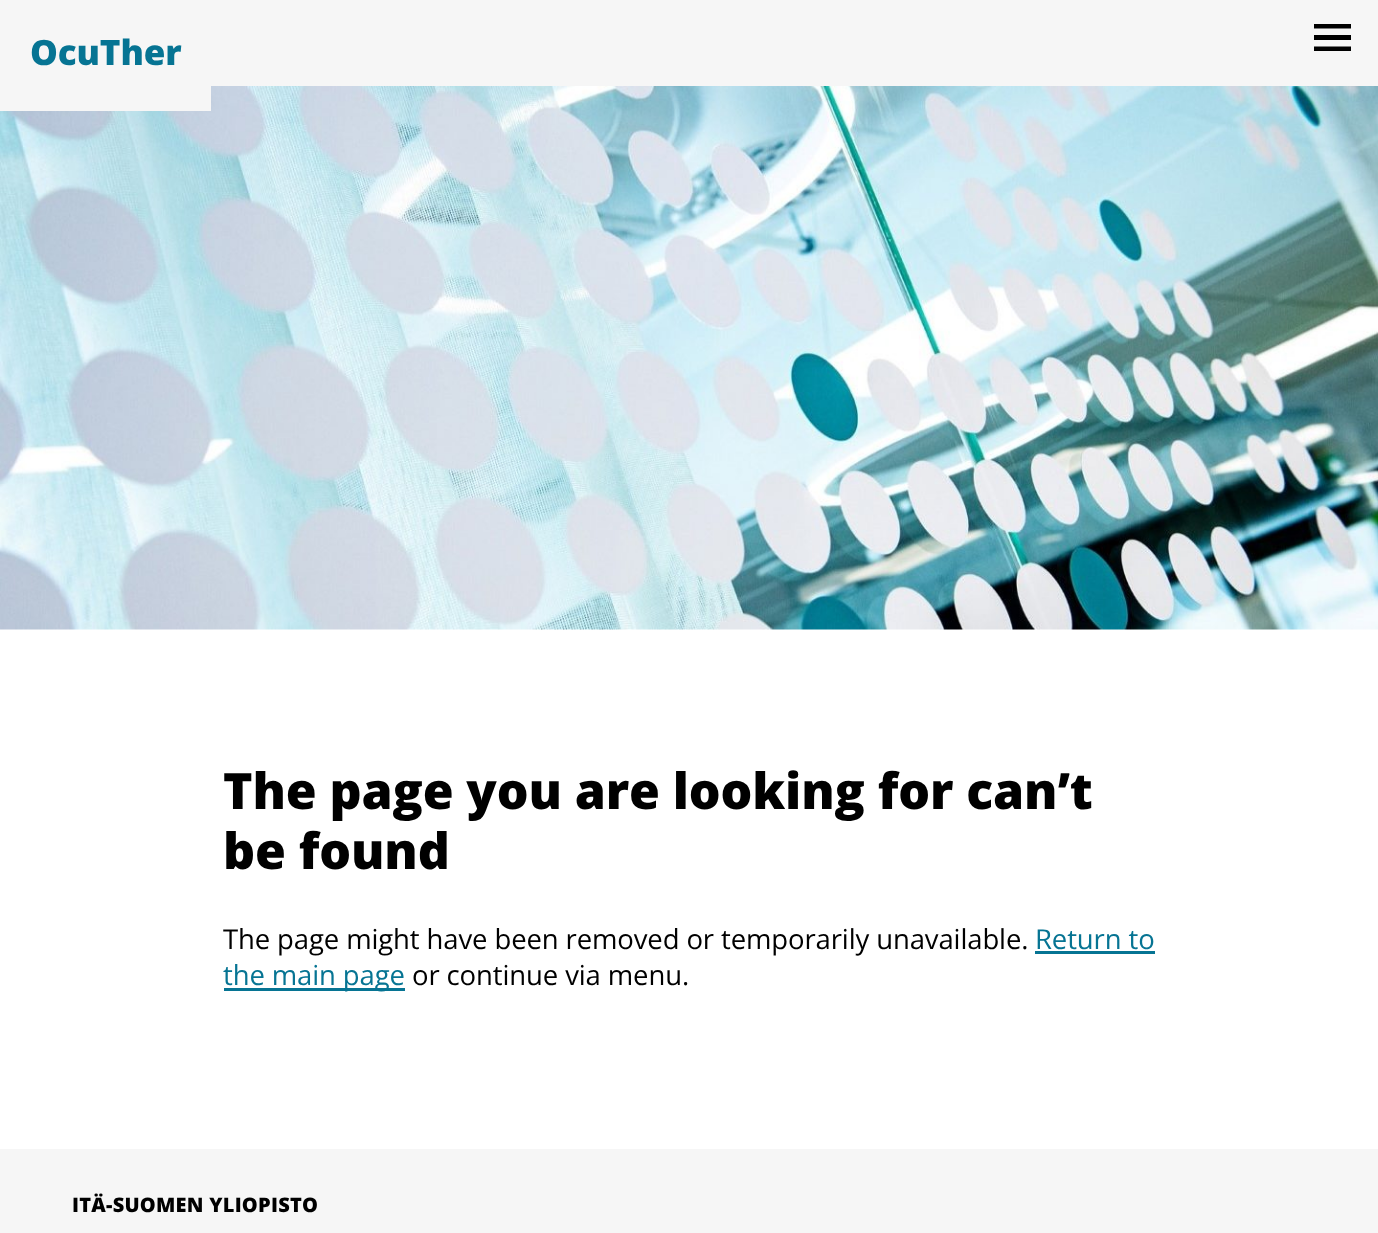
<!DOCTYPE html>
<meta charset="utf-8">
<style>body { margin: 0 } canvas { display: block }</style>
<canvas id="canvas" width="1378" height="1233"></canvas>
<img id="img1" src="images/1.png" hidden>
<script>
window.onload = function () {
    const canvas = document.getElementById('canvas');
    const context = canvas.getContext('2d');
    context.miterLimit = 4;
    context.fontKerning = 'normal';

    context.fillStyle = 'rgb(255, 255, 255)';
    context.fillRect(0, 0, 1378, 1233);
    context.fillStyle = 'rgb(246, 246, 246)';
    context.fillRect(211, 0, 1167, 86);
    context.drawImage(document.getElementById('img1'), 0, 86, 1378, 544);
    context.fillRect(0, 0, 211, 111);
    context.fillStyle = 'rgb(0, 0, 0)';
    context.beginPath();
    context.moveTo(1314, 24);
    context.lineTo(1351, 24);
    context.lineTo(1351, 28.5);
    context.lineTo(1314, 28.5);
    context.closePath();
    context.moveTo(1314, 35);
    context.lineTo(1351, 35);
    context.lineTo(1351, 40);
    context.lineTo(1314, 40);
    context.closePath();
    context.moveTo(1314, 46.5);
    context.lineTo(1351, 46.5);
    context.lineTo(1351, 51);
    context.lineTo(1314, 51);
    context.closePath();
    context.fill('evenodd');
    context.fillStyle = 'rgb(6, 116, 147)';
    context.fillRect(1035, 951, 120, 3);
    context.fillRect(224, 988, 181, 3);
    context.fillStyle = 'rgb(246, 246, 246)';
    context.fillRect(0, 1149, 1378, 84);
    context.letterSpacing = '-0.12px';
    context.font = '800 35px Open Sans';
    context.fillStyle = 'rgb(6, 116, 147)';
    context.fillText('OcuTher', 30, 65);
    context.font = '800 50px Open Sans';
    context.fillStyle = 'rgb(0, 0, 0)';
    context.fillText('The page you are looking for can’t', 223, 809);
    context.fillText('be found', 223, 869);
    context.font = '27.5px Open Sans';
    context.fillText('The page might have been removed or temporarily unavailable.', 223, 949);
    context.fillStyle = 'rgb(6, 116, 147)';
    context.fillText('Return to', 1035, 949);
    context.fillText('the main page', 223, 985);
    context.fillStyle = 'rgb(0, 0, 0)';
    context.fillText('or continue via menu.', 412, 985);
    context.letterSpacing = '0.25px';
    context.font = '800 20px Open Sans';
    context.fillText('ITÄ-SUOMEN YLIOPISTO', 72, 1212);
};
</script>
